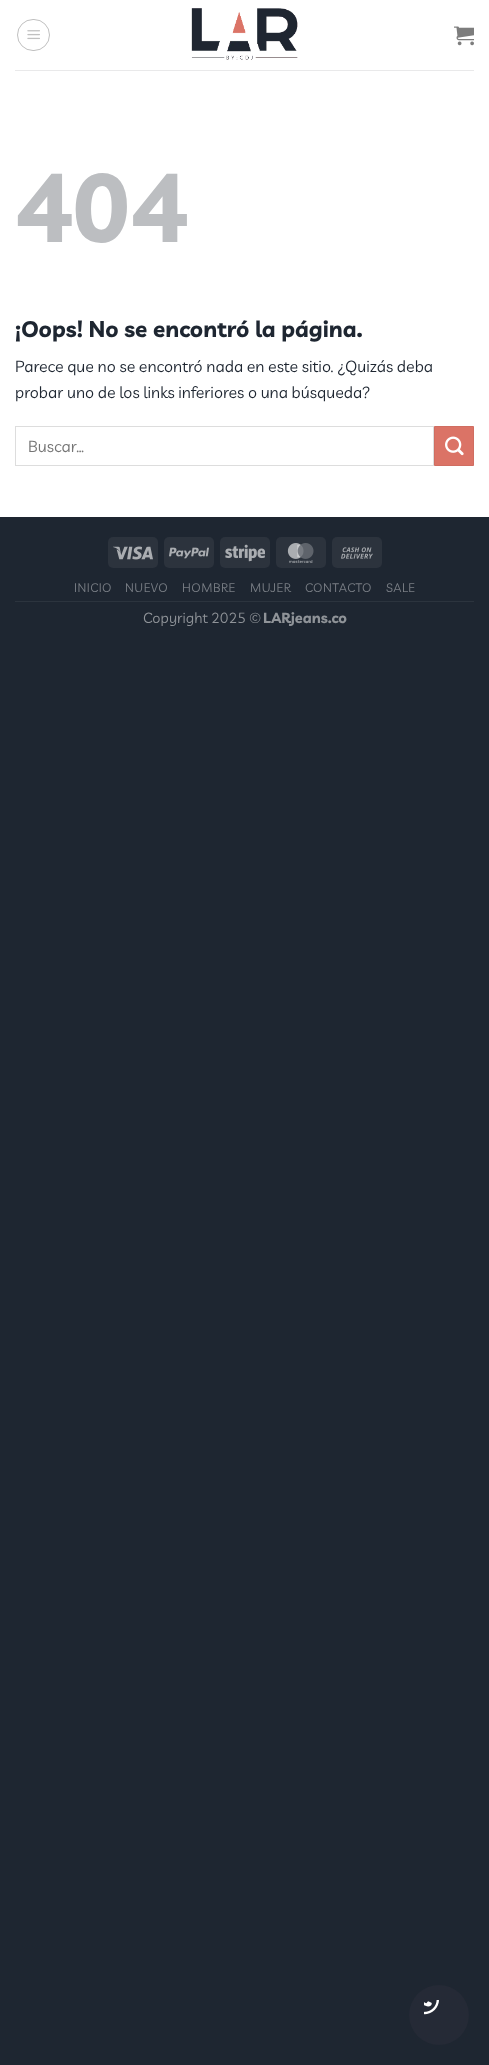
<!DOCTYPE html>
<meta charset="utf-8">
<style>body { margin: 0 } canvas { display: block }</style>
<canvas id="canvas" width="489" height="2065"></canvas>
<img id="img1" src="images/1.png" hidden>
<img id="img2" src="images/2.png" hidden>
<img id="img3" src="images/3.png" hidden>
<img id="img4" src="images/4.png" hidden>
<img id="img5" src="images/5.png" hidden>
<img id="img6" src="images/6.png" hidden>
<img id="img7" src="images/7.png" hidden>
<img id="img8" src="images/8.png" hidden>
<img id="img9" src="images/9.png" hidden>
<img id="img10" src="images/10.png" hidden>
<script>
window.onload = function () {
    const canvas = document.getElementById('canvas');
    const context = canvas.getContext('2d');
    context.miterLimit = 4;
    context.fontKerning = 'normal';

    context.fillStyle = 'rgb(30, 38, 49)';
    context.fillRect(0, 0, 489, 2065);
    context.fillStyle = 'rgb(255, 255, 255)';
    context.fillRect(0, 0, 489, 517);
    context.beginPath();
    context.roundRect(17.5, 19.5, 32, 31, 15.5);
    context.strokeStyle = 'rgb(192, 192, 192)';
    context.stroke();
    context.drawImage(document.getElementById('img1'), 27, 30, 13, 10);
    context.drawImage(document.getElementById('img2'), 191, 8, 107, 52);
    context.drawImage(document.getElementById('img3'), 454, 26, 20, 20);
    context.fillStyle = 'rgb(233, 233, 234)';
    context.fillRect(15, 70, 459, 1);
    context.strokeStyle = 'rgb(221, 221, 221)';
    context.strokeRect(15.5, 426.5, 418, 39);
    context.fillStyle = 'rgb(219, 115, 102)';
    context.beginPath();
    context.rect(434.5, 426.5, 39, 39);
    context.fill();
    context.strokeStyle = 'rgb(208, 109, 97)';
    context.stroke();
    context.drawImage(document.getElementById('img4'), 445, 436, 19, 20);
    context.fillStyle = 'rgb(44, 51, 61)';
    context.beginPath();
    context.roundRect(108, 537, 50, 31, 5);
    context.fill();
    context.drawImage(document.getElementById('img5'), 113, 546, 40, 14);
    context.beginPath();
    context.roundRect(164, 537, 50, 31, 5);
    context.fill();
    context.drawImage(document.getElementById('img6'), 169, 547, 40, 12);
    context.beginPath();
    context.roundRect(220, 537, 50, 31, 5);
    context.fill();
    context.drawImage(document.getElementById('img7'), 225, 544, 40, 18);
    context.beginPath();
    context.roundRect(276, 537, 50, 31, 5);
    context.fill();
    context.drawImage(document.getElementById('img8'), 287, 543, 27, 20);
    context.beginPath();
    context.roundRect(332, 537, 50, 31, 5);
    context.fill();
    context.drawImage(document.getElementById('img9'), 341, 547, 32, 12);
    context.fillStyle = 'rgb(44, 52, 62)';
    context.fillRect(15, 601, 459, 1);
    context.fillStyle = 'rgb(37, 42, 54)';
    context.beginPath();
    context.arc(439, 2015, 30, 0, 2 * Math.PI);
    context.fill();
    context.drawImage(document.getElementById('img10'), 424, 2000, 15, 15);
    context.font = 'bold 96px Livvic';
    context.fillStyle = 'rgb(188, 190, 193)';
    context.fillText('404', 15, 242);
    context.font = 'bold 22.4px Livvic';
    context.fillStyle = 'rgb(30, 38, 49)';
    context.fillText('¡Oops! No se encontró la página.', 15, 337);
    context.font = '16px Livvic';
    context.fillText('Parece que no se encontró nada en este sitio. ¿Quizás deba', 15, 372);
    context.fillText('probar uno de los links inferiores o una búsqueda?', 15, 398);
    context.fillStyle = 'rgb(117, 117, 117)';
    context.fillText('Buscar…', 28, 452);
    context.letterSpacing = '0.5px';
    context.font = '12.25px Livvic';
    context.fillStyle = 'rgb(120, 125, 132)';
    context.fillText('INICIO', 74, 592);
    context.fillText('NUEVO', 125, 592);
    context.fillText('HOMBRE', 182, 592);
    context.fillText('MUJER', 250, 592);
    context.fillText('CONTACTO', 305, 592);
    context.fillText('SALE', 386, 592);
    context.letterSpacing = '0px';
    context.font = '14.5px Livvic';
    context.fillStyle = 'rgb(143, 147, 152)';
    context.fillText('Copyright 2025 ©', 143, 623);
    context.font = 'bold 14.5px Livvic';
    context.fillText('LARjeans.co', 263, 623);
};
</script>
